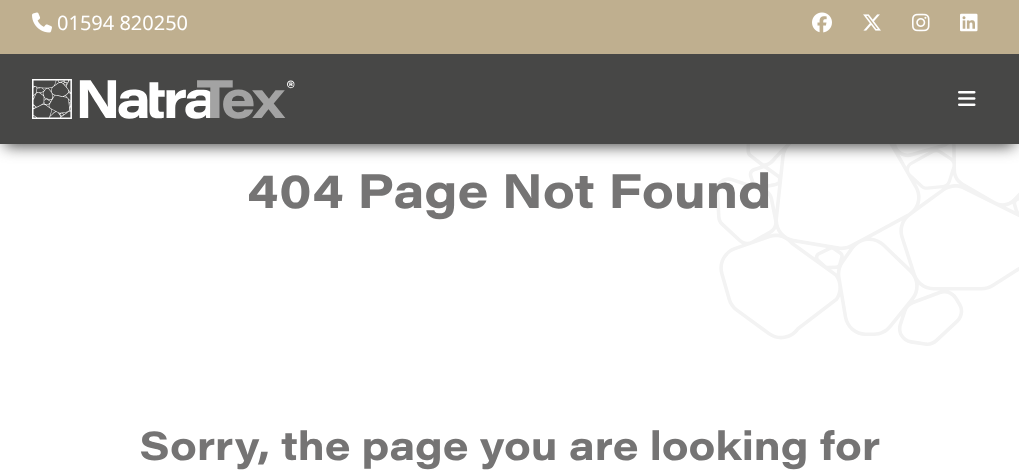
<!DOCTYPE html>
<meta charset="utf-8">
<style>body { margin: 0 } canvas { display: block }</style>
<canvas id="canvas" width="1019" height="473"></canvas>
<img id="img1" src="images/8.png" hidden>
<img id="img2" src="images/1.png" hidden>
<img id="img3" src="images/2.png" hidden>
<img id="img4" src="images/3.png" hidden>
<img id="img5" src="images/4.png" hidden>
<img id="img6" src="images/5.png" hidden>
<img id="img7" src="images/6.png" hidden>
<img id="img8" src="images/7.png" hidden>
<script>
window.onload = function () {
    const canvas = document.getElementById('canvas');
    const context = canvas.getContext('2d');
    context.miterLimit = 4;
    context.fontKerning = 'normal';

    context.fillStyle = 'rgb(255, 255, 255)';
    context.fillRect(0, 0, 1019, 473);
    context.drawImage(document.getElementById('img1'), 716, 144, 303, 202);
    context.fillStyle = 'rgb(71, 71, 70)';
    context.filter = 'blur(7.5px)';
    context.beginPath();
    context.rect(5, 12, 1009, 134);
    context.fill();
    context.filter = 'none';
    context.fillRect(0, 54, 1019, 90);
    context.fillStyle = 'rgb(191, 175, 143)';
    context.fillRect(0, 0, 1019, 54);
    context.drawImage(document.getElementById('img2'), 32, 12, 20, 21);
    context.drawImage(document.getElementById('img3'), 812, 12, 20, 21);
    context.drawImage(document.getElementById('img4'), 863, 14, 18, 17);
    context.drawImage(document.getElementById('img5'), 912, 13, 18, 19);
    context.drawImage(document.getElementById('img6'), 960, 13, 18, 19);
    context.drawImage(document.getElementById('img7'), 32, 79, 263, 40);
    context.drawImage(document.getElementById('img8'), 958, 91, 18, 15);
    context.font = '20px Noto Sans';
    context.fillStyle = 'rgb(255, 255, 255)';
    context.fillText('01594 820250', 57, 30);
    context.font = 'bold 48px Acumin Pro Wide';
    context.fillStyle = 'rgb(117, 116, 116)';
    context.fillText('404 Page Not Found', 247, 208);
    context.font = 'bold 40px Acumin Pro Wide';
    context.fillText('Sorry, the page you are looking for', 140, 460);
};
</script>
